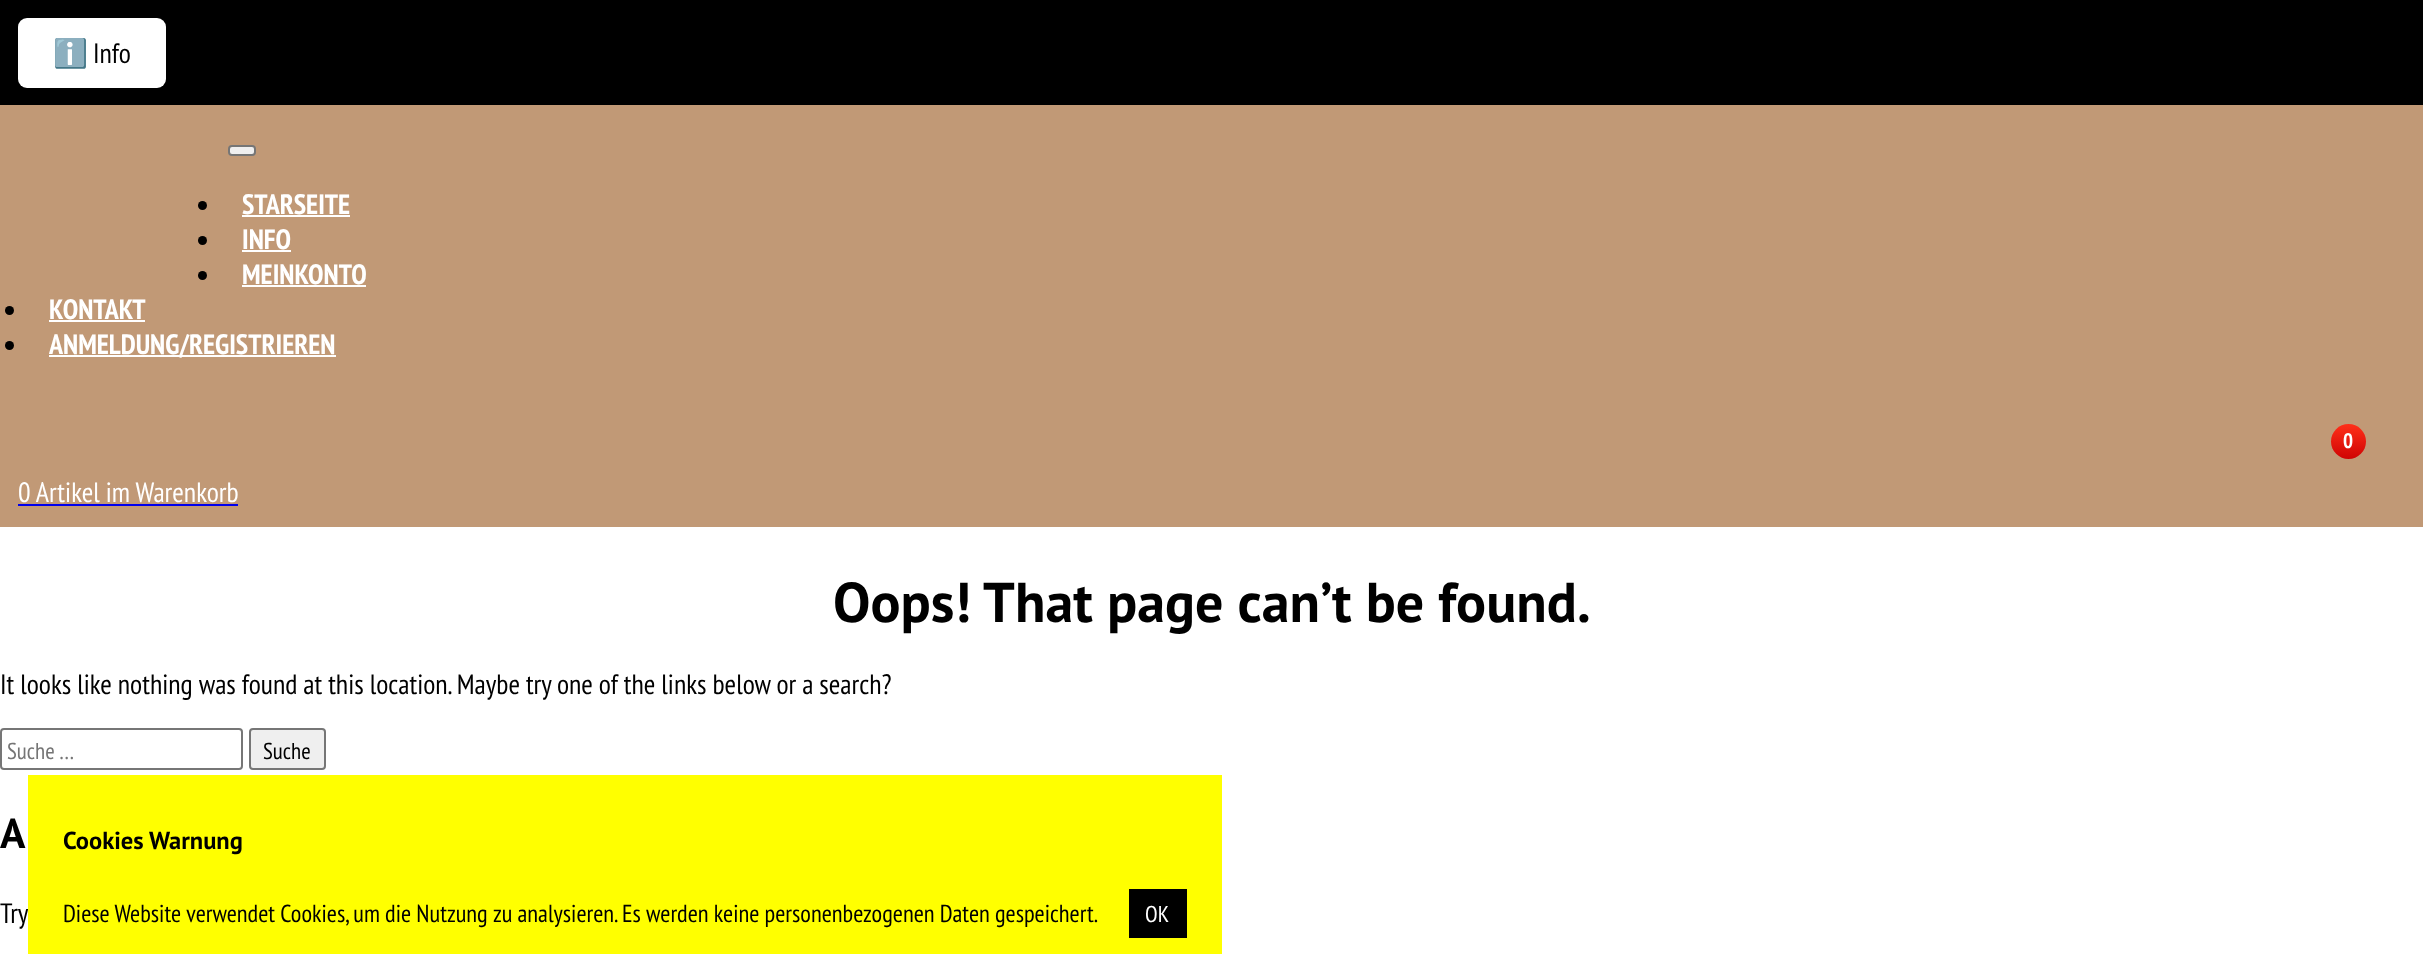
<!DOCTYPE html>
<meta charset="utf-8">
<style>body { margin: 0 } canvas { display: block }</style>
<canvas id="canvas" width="2423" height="954"></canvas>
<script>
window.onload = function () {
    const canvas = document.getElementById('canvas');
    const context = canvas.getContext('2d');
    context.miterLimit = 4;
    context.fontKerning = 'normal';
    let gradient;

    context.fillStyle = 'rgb(255, 255, 255)';
    context.fillRect(0, 0, 2423, 954);
    context.fillStyle = 'rgb(0, 0, 0)';
    context.fillRect(0, 0, 2423, 105);
    context.fillStyle = 'rgb(255, 255, 255)';
    context.beginPath();
    context.roundRect(18, 18, 148, 70, 9);
    context.fill();
    context.fillStyle = 'rgb(193, 153, 118)';
    context.fillRect(0, 105, 2423, 422);
    context.fillStyle = 'rgb(239, 239, 239)';
    context.beginPath();
    context.roundRect(229, 146, 26, 9, 3);
    context.fill();
    context.strokeStyle = 'rgb(118, 118, 118)';
    context.lineWidth = 2;
    context.stroke();
    context.fillStyle = 'rgb(0, 0, 0)';
    context.beginPath();
    context.arc(202.5, 205.5, 4.5, 0, 2 * Math.PI);
    context.fill();
    context.fillStyle = 'rgb(255, 255, 255)';
    context.fillRect(242, 215, 108, 2);
    context.fillStyle = 'rgb(0, 0, 0)';
    context.beginPath();
    context.arc(202.5, 240.5, 4.5, 0, 2 * Math.PI);
    context.fill();
    context.fillStyle = 'rgb(255, 255, 255)';
    context.fillRect(242, 250, 49, 2);
    context.fillStyle = 'rgb(0, 0, 0)';
    context.beginPath();
    context.arc(202.5, 275.5, 4.5, 0, 2 * Math.PI);
    context.fill();
    context.fillStyle = 'rgb(255, 255, 255)';
    context.fillRect(242, 285, 124, 2);
    context.fillStyle = 'rgb(0, 0, 0)';
    context.beginPath();
    context.arc(9.5, 310.5, 4.5, 0, 2 * Math.PI);
    context.fill();
    context.fillStyle = 'rgb(255, 255, 255)';
    context.fillRect(49, 320, 96, 2);
    context.fillStyle = 'rgb(0, 0, 0)';
    context.beginPath();
    context.arc(9.5, 345.5, 4.5, 0, 2 * Math.PI);
    context.fill();
    context.fillStyle = 'rgb(255, 255, 255)';
    context.fillRect(49, 355, 287, 2);
    gradient = context.createLinearGradient(2349, 424, 2349, 459);
    gradient.addColorStop(0, 'rgb(255, 48, 25)');
    gradient.addColorStop(1, 'rgb(207, 4, 4)');
    context.fillStyle = gradient;
    context.beginPath();
    context.arc(2348.5, 441.5, 17.5, 0, 2 * Math.PI);
    context.fill();
    context.fillStyle = 'rgb(0, 0, 238)';
    context.fillRect(18, 504, 220, 2);
    context.beginPath();
    context.roundRect(1, 729, 241, 40, 3);
    context.stroke();
    context.fillStyle = 'rgb(239, 239, 239)';
    context.beginPath();
    context.roundRect(250, 729, 75, 40, 3);
    context.fill();
    context.stroke();
    context.font = '28px Noto Color Emoji';
    context.fillStyle = 'rgb(0, 0, 0)';
    context.fillText('ℹ️', 53, 63);
    context.font = '28px PT Sans Narrow';
    context.fillText('Info', 93, 63);
    context.font = 'bold 28px PT Sans Narrow';
    context.fillStyle = 'rgb(255, 255, 255)';
    context.fillText('STARSEITE', 242, 214);
    context.fillText('INFO', 242, 249);
    context.fillText('MEINKONTO', 242, 284);
    context.fillText('KONTAKT', 49, 319);
    context.fillText('ANMELDUNG/REGISTRIEREN', 49, 354);
    context.font = 'bold 21px PT Sans Narrow';
    context.fillText('0', 2343, 448);
    context.font = '28px PT Sans Narrow';
    context.fillText('0 Artikel im Warenkorb', 18, 502);
    context.font = 'bold 56px PT Sans';
    context.fillStyle = 'rgb(0, 0, 0)';
    context.fillText('Oops! That page can’t be found.', 833, 622);
    context.font = '28px PT Sans Narrow';
    context.fillText('It looks like nothing was found at this location. Maybe try one of the links below or a search?', 0, 694);
    context.font = '23px PT Sans Narrow';
    context.fillStyle = 'rgb(117, 117, 117)';
    context.fillText('Suche …', 7, 759);
    context.fillStyle = 'rgb(0, 0, 0)';
    context.fillText('Suche', 263, 759);
    context.font = 'bold 42px PT Sans';
    context.fillText('A', 0, 848);
    context.font = '28px PT Sans Narrow';
    context.fillText('Try', 0, 923);
    context.fillStyle = 'rgb(255, 255, 0)';
    context.fillRect(28, 775, 1194, 179);
    context.font = 'bold 24.5px PT Sans';
    context.fillStyle = 'rgb(0, 0, 0)';
    context.fillText('Cookies Warnung', 63, 849);
    context.font = '24.5px PT Sans Narrow';
    context.fillText('Diese Website verwendet Cookies, um die Nutzung zu analysieren. Es werden keine personenbezogenen Daten gespeichert.', 63, 922);
    context.fillRect(1129, 889, 58, 49);
    context.font = '23px PT Sans Narrow';
    context.fillStyle = 'rgb(255, 255, 255)';
    context.fillText('OK', 1145, 922);
};
</script>
